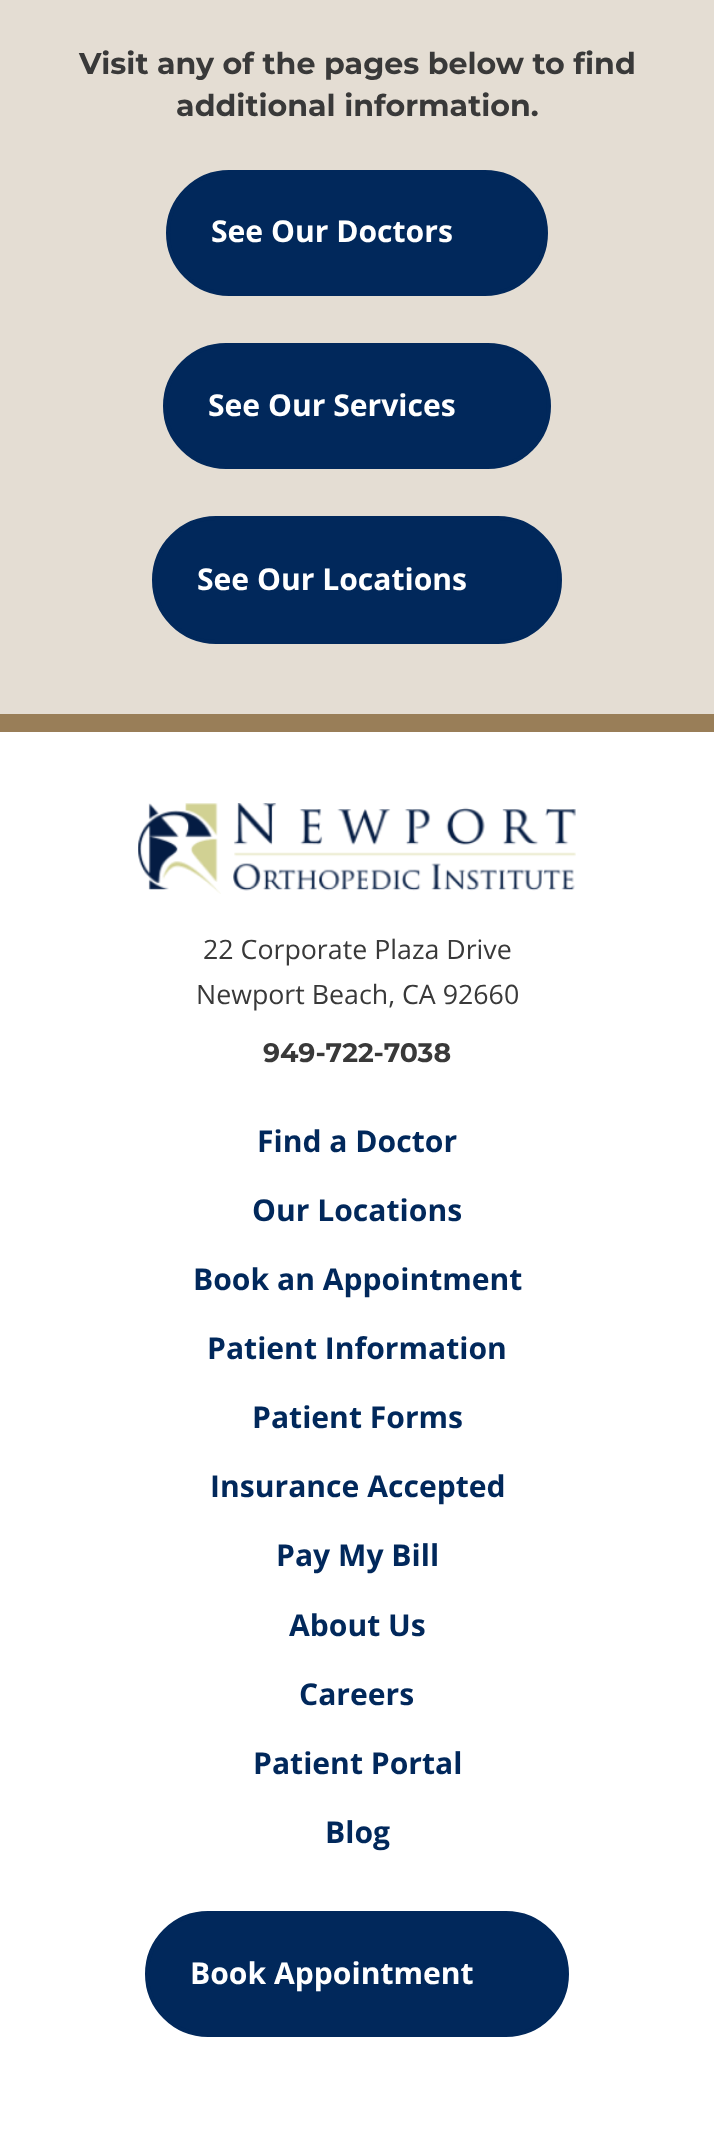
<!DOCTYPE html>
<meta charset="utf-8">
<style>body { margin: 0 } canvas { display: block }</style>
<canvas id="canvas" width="714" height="2151"></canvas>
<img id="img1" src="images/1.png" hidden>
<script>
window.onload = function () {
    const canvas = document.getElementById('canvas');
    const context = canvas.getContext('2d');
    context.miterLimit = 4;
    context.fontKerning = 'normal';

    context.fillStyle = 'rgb(255, 255, 255)';
    context.fillRect(0, 0, 714, 2151);
    context.fillStyle = 'rgb(228, 221, 211)';
    context.fillRect(0, 0, 714, 714);
    context.fillStyle = 'rgb(1, 40, 91)';
    context.beginPath();
    context.roundRect(168, 172, 378, 122, 61);
    context.fill();
    context.strokeStyle = 'rgb(1, 40, 91)';
    context.lineWidth = 4;
    context.stroke();
    context.beginPath();
    context.roundRect(165, 345, 384, 122, 61);
    context.fill();
    context.stroke();
    context.beginPath();
    context.roundRect(154, 518, 406, 124, 62);
    context.fill();
    context.stroke();
    context.fillStyle = 'rgb(153, 126, 88)';
    context.fillRect(0, 714, 714, 18);
    context.drawImage(document.getElementById('img1'), 138, 803, 438, 91);
    context.fillStyle = 'rgb(1, 40, 91)';
    context.beginPath();
    context.roundRect(147, 1913, 420, 122, 61);
    context.fill();
    context.stroke();
    context.font = 'bold 30.1px Montserrat';
    context.fillStyle = 'rgb(57, 57, 57)';
    context.fillText('Visit any of the pages below to find', 79, 74);
    context.fillText('additional information.', 176, 116);
    context.font = 'bold 30.1px Open Sans';
    context.fillStyle = 'rgb(255, 255, 255)';
    context.fillText('See Our Doctors', 211, 242);
    context.fillText('See Our Services', 208, 416);
    context.fillText('See Our Locations', 197, 590);
    context.font = '26.75px Open Sans';
    context.fillStyle = 'rgb(57, 57, 57)';
    context.fillText('22 Corporate Plaza Drive', 203, 959);
    context.fillText('Newport Beach, CA 92660', 196, 1004);
    context.font = 'bold 26.75px Montserrat';
    context.fillText('949-722-7038', 263, 1062);
    context.font = 'bold 30.1px Open Sans';
    context.fillStyle = 'rgb(1, 40, 91)';
    context.fillText('Find a Doctor', 257, 1152);
    context.fillText('Our Locations', 252, 1221);
    context.fillText('Book an Appointment', 193, 1290);
    context.fillText('Patient Information', 207, 1359);
    context.fillText('Patient Forms', 252, 1428);
    context.fillText('Insurance Accepted', 210, 1497);
    context.fillText('Pay My Bill', 276, 1566);
    context.fillText('About Us', 289, 1636);
    context.fillText('Careers', 299, 1705);
    context.fillText('Patient Portal', 253, 1774);
    context.fillText('Blog', 325, 1843);
    context.fillStyle = 'rgb(255, 255, 255)';
    context.fillText('Book Appointment', 190, 1984);
};
</script>
